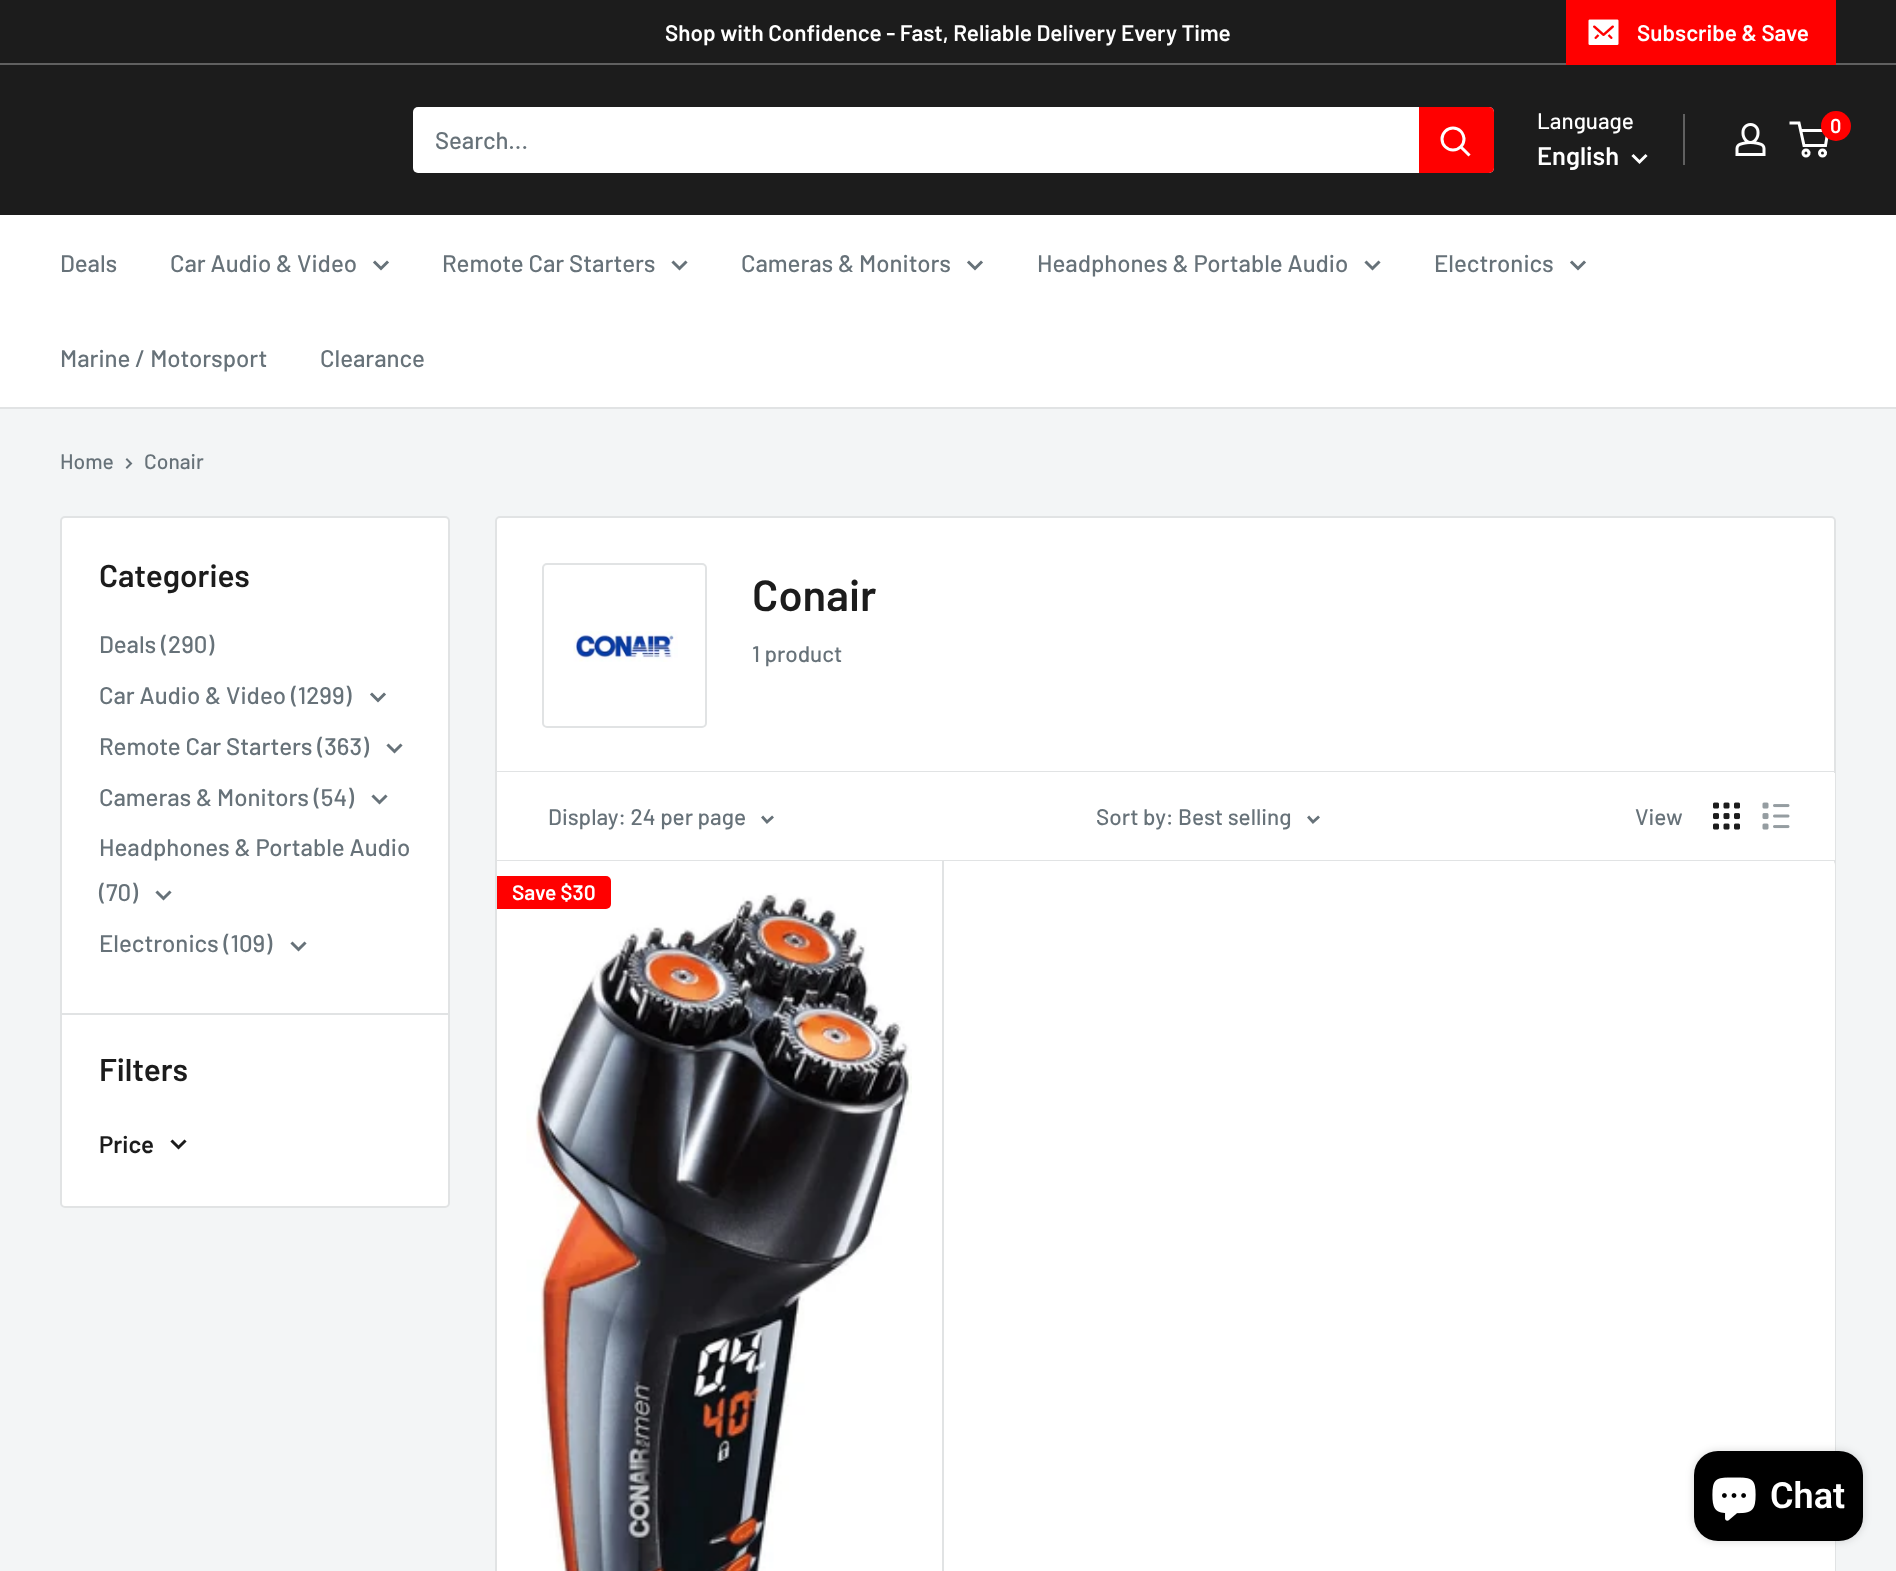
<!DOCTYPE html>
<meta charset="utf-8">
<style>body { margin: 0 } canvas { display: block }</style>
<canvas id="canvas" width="1896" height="1571"></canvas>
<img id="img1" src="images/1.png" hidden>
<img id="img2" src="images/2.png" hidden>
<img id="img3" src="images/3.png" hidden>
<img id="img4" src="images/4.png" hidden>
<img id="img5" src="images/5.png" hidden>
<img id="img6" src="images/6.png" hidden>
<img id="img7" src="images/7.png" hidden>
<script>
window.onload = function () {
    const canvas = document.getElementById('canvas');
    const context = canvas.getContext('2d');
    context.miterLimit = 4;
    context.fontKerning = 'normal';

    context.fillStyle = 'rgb(243, 245, 246)';
    context.fillRect(0, 0, 1896, 1571);
    context.fillStyle = 'rgb(28, 28, 28)';
    context.fillRect(0, 0, 1896, 63);
    context.fillStyle = 'rgb(96, 96, 96)';
    context.fillRect(0, 63, 1896, 2);
    context.fillStyle = 'rgb(255, 0, 0)';
    context.fillRect(1566, 0, 270, 65);
    context.drawImage(document.getElementById('img1'), 1588, 19, 31, 26);
    context.fillStyle = 'rgb(28, 28, 28)';
    context.fillRect(0, 65, 1896, 150);
    context.fillStyle = 'rgb(255, 255, 255)';
    context.beginPath();
    context.roundRect(413, 107, 1081, 66, 5);
    context.fill();
    context.fillStyle = 'rgb(255, 0, 0)';
    context.beginPath();
    context.roundRect(1419, 107, 75, 66, [0, 5, 5, 0]);
    context.fill();
    context.beginPath();
    context.moveTo(1468.5, 154.5);
    context.lineTo(1461, 147);
    context.strokeStyle = 'rgb(255, 255, 255)';
    context.lineWidth = 3;
    context.lineCap = 'square';
    context.stroke();
    context.beginPath();
    context.arc(1453, 139, 11, 0, 2 * Math.PI);
    context.stroke();
    context.beginPath();
    context.moveTo(1645.5, 156);
    context.lineTo(1639.5, 162);
    context.lineTo(1633.5, 156);
    context.stroke();
    context.fillStyle = 'rgb(96, 96, 96)';
    context.fillRect(1683, 114, 2, 51);
    context.drawImage(document.getElementById('img2'), 1735, 123, 31, 33);
    context.beginPath();
    context.arc(1806, 153, 3, 0, 2 * Math.PI);
    context.stroke();
    context.beginPath();
    context.arc(1822.5, 153, 3, 0, 2 * Math.PI);
    context.stroke();
    context.beginPath();
    context.moveTo(1800.5, 130.5);
    context.lineTo(1828, 130.5);
    context.lineTo(1825.5, 145.5);
    context.lineTo(1804, 145.5);
    context.lineTo(1799, 123);
    context.lineTo(1789.5, 123);
    context.lineCap = 'butt';
    context.stroke();
    context.fillStyle = 'rgb(255, 0, 0)';
    context.beginPath();
    context.arc(1836, 126, 15, 0, 2 * Math.PI);
    context.fill();
    context.fillStyle = 'rgb(255, 255, 255)';
    context.fillRect(0, 215, 1896, 192);
    context.fillStyle = 'rgb(225, 227, 228)';
    context.fillRect(0, 407, 1896, 2);
    context.beginPath();
    context.moveTo(387, 262.5);
    context.lineTo(381, 268.5);
    context.lineTo(375, 262.5);
    context.strokeStyle = 'rgb(103, 114, 121)';
    context.lineCap = 'square';
    context.stroke();
    context.beginPath();
    context.moveTo(685.5, 262.5);
    context.lineTo(679.5, 268.5);
    context.lineTo(673.5, 262.5);
    context.stroke();
    context.beginPath();
    context.moveTo(981, 262.5);
    context.lineTo(975, 268.5);
    context.lineTo(969, 262.5);
    context.stroke();
    context.beginPath();
    context.moveTo(1378.5, 262.5);
    context.lineTo(1372.5, 268.5);
    context.lineTo(1366.5, 262.5);
    context.stroke();
    context.beginPath();
    context.moveTo(1584, 262.5);
    context.lineTo(1578, 268.5);
    context.lineTo(1572, 262.5);
    context.stroke();
    context.beginPath();
    context.moveTo(127, 459.5);
    context.lineTo(131, 463.5);
    context.lineTo(127, 467.5);
    context.lineWidth = 2;
    context.stroke();
    context.fillStyle = 'rgb(255, 255, 255)';
    context.beginPath();
    context.roundRect(61, 517, 388, 690, 4);
    context.fill();
    context.strokeStyle = 'rgb(225, 227, 228)';
    context.stroke();
    context.beginPath();
    context.moveTo(384, 694.5);
    context.lineTo(378, 700.5);
    context.lineTo(372, 694.5);
    context.moveTo(400.5, 745.5);
    context.lineTo(394.5, 751.5);
    context.lineTo(388.5, 745.5);
    context.strokeStyle = 'rgb(103, 114, 121)';
    context.lineWidth = 3;
    context.stroke();
    context.beginPath();
    context.moveTo(385.5, 796.5);
    context.lineTo(379.5, 802.5);
    context.lineTo(373.5, 796.5);
    context.stroke();
    context.beginPath();
    context.moveTo(169.5, 892.5);
    context.lineTo(163.5, 898.5);
    context.lineTo(157.5, 892.5);
    context.stroke();
    context.beginPath();
    context.moveTo(304.5, 943.5);
    context.lineTo(298.5, 949.5);
    context.lineTo(292.5, 943.5);
    context.stroke();
    context.fillStyle = 'rgb(225, 227, 228)';
    context.fillRect(62, 1013, 387, 2);
    context.beginPath();
    context.moveTo(184.5, 1141.5);
    context.lineTo(178.5, 1147.5);
    context.lineTo(172.5, 1141.5);
    context.strokeStyle = 'rgb(28, 28, 28)';
    context.stroke();
    context.fillStyle = 'rgb(255, 255, 255)';
    context.beginPath();
    context.roundRect(496, 517, 1339, 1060, 4);
    context.fill();
    context.strokeStyle = 'rgb(225, 227, 228)';
    context.lineWidth = 2;
    context.stroke();
    context.beginPath();
    context.roundRect(543, 564, 163, 163, 4);
    context.stroke();
    context.drawImage(document.getElementById('img3'), 573, 631, 105, 31);
    context.fillStyle = 'rgb(225, 227, 228)';
    context.beginPath();
    context.moveTo(497, 771);
    context.lineTo(497, 772);
    context.lineTo(1834, 772);
    context.lineTo(1834, 858);
    context.lineTo(1835, 858);
    context.lineTo(1835, 771);
    context.closePath();
    context.fill();
    context.fillStyle = 'rgb(255, 255, 255)';
    context.beginPath();
    context.roundRect(497, 860, 1338, 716, 5);
    context.fill();
    context.fillStyle = 'rgb(225, 227, 228)';
    context.fillRect(942, 860, 2, 711);
    context.beginPath();
    context.moveTo(497, 860);
    context.lineTo(497, 861);
    context.lineTo(1835, 861);
    context.lineTo(1835, 774);
    context.lineTo(1834, 774);
    context.lineTo(1834, 860);
    context.closePath();
    context.fill();
    context.fillStyle = 'rgb(255, 255, 255)';
    context.fillRect(1834, 773, 1, 87);
    context.beginPath();
    context.moveTo(772, 817.5);
    context.lineTo(767, 822);
    context.lineTo(763, 817.5);
    context.strokeStyle = 'rgb(103, 114, 121)';
    context.lineWidth = 2.8;
    context.stroke();
    context.beginPath();
    context.moveTo(1318, 817.5);
    context.lineTo(1313, 822);
    context.lineTo(1309, 817.5);
    context.stroke();
    context.drawImage(document.getElementById('img4'), 1713, 802, 27, 28);
    context.drawImage(document.getElementById('img5'), 1762, 802, 28, 28);
    context.drawImage(document.getElementById('img6'), 526, 893, 386, 678);
    context.fillStyle = 'rgb(255, 0, 0)';
    context.beginPath();
    context.roundRect(497, 876, 114, 33, [0, 5, 5, 0]);
    context.fill();
    context.fillStyle = 'rgba(0, 0, 0, 0.15)';
    context.filter = 'blur(4px)';
    context.beginPath();
    context.roundRect(1694, 1451, 169, 90, 24);
    context.fill();
    context.filter = 'none';
    context.fillStyle = 'rgb(0, 0, 0)';
    context.beginPath();
    context.roundRect(1694, 1451, 169, 90, 24);
    context.fill();
    context.drawImage(document.getElementById('img7'), 1712, 1477, 44, 44);
    context.font = '600 22.5px Barlow';
    context.fillStyle = 'rgb(255, 255, 255)';
    context.fillText('Shop with Confidence - Fast, Reliable Delivery Every Time', 665, 41);
    context.fillText('Subscribe & Save', 1637, 41);
    context.font = '500 24px Barlow';
    context.fillStyle = 'rgb(103, 114, 121)';
    context.fillText('Search...', 435, 149);
    context.font = '500 22.5px Barlow';
    context.fillStyle = 'rgb(255, 255, 255)';
    context.fillText('Language', 1537, 129);
    context.font = '600 25.5px Barlow';
    context.fillText('English', 1537, 165);
    context.font = '600 20px Barlow';
    context.fillText('0', 1830, 133);
    context.font = '500 24px Barlow';
    context.fillStyle = 'rgb(103, 114, 121)';
    context.fillText('Deals', 60, 272);
    context.fillText('Car Audio & Video', 170, 272);
    context.fillText('Remote Car Starters', 442, 272);
    context.fillText('Cameras & Monitors', 741, 272);
    context.fillText('Headphones & Portable Audio', 1037, 272);
    context.fillText('Electronics', 1434, 272);
    context.fillText('Marine / Motorsport', 60, 367);
    context.fillText('Clearance', 320, 367);
    context.font = '500 21px Barlow';
    context.fillText('Home', 60, 469);
    context.fillText('Conair', 144, 469);
    context.font = '600 31.5px Barlow';
    context.fillStyle = 'rgb(28, 28, 28)';
    context.fillText('Categories', 99, 587);
    context.font = '500 24px Barlow';
    context.fillStyle = 'rgb(103, 114, 121)';
    context.fillText('Deals (290)', 99, 653);
    context.fillText('Car Audio & Video (1299)', 99, 704);
    context.fillText('Remote Car Starters (363)', 99, 755);
    context.fillText('Cameras & Monitors (54)', 99, 806);
    context.fillText('Headphones & Portable Audio', 99, 856);
    context.fillText('(70)', 99, 901);
    context.fillText('Electronics (109)', 99, 952);
    context.font = '600 31.5px Barlow';
    context.fillStyle = 'rgb(28, 28, 28)';
    context.fillText('Filters', 99, 1081);
    context.font = '600 24px Barlow';
    context.fillText('Price', 99, 1153);
    context.font = '600 43.5px Barlow';
    context.fillText('Conair', 752, 611);
    context.font = '500 22.5px Barlow';
    context.fillStyle = 'rgb(103, 114, 121)';
    context.fillText('1 product', 752, 662);
    context.fillText('Display: 24 per page', 548, 825);
    context.fillText('Sort by: Best selling', 1096, 825);
    context.fillText('View', 1635, 825);
    context.font = '600 21px Barlow';
    context.fillStyle = 'rgb(255, 255, 255)';
    context.fillText('Save $30', 512, 900);
    context.font = '600 36px Roboto';
    context.fillText('Chat', 1770, 1508);
};
</script>
